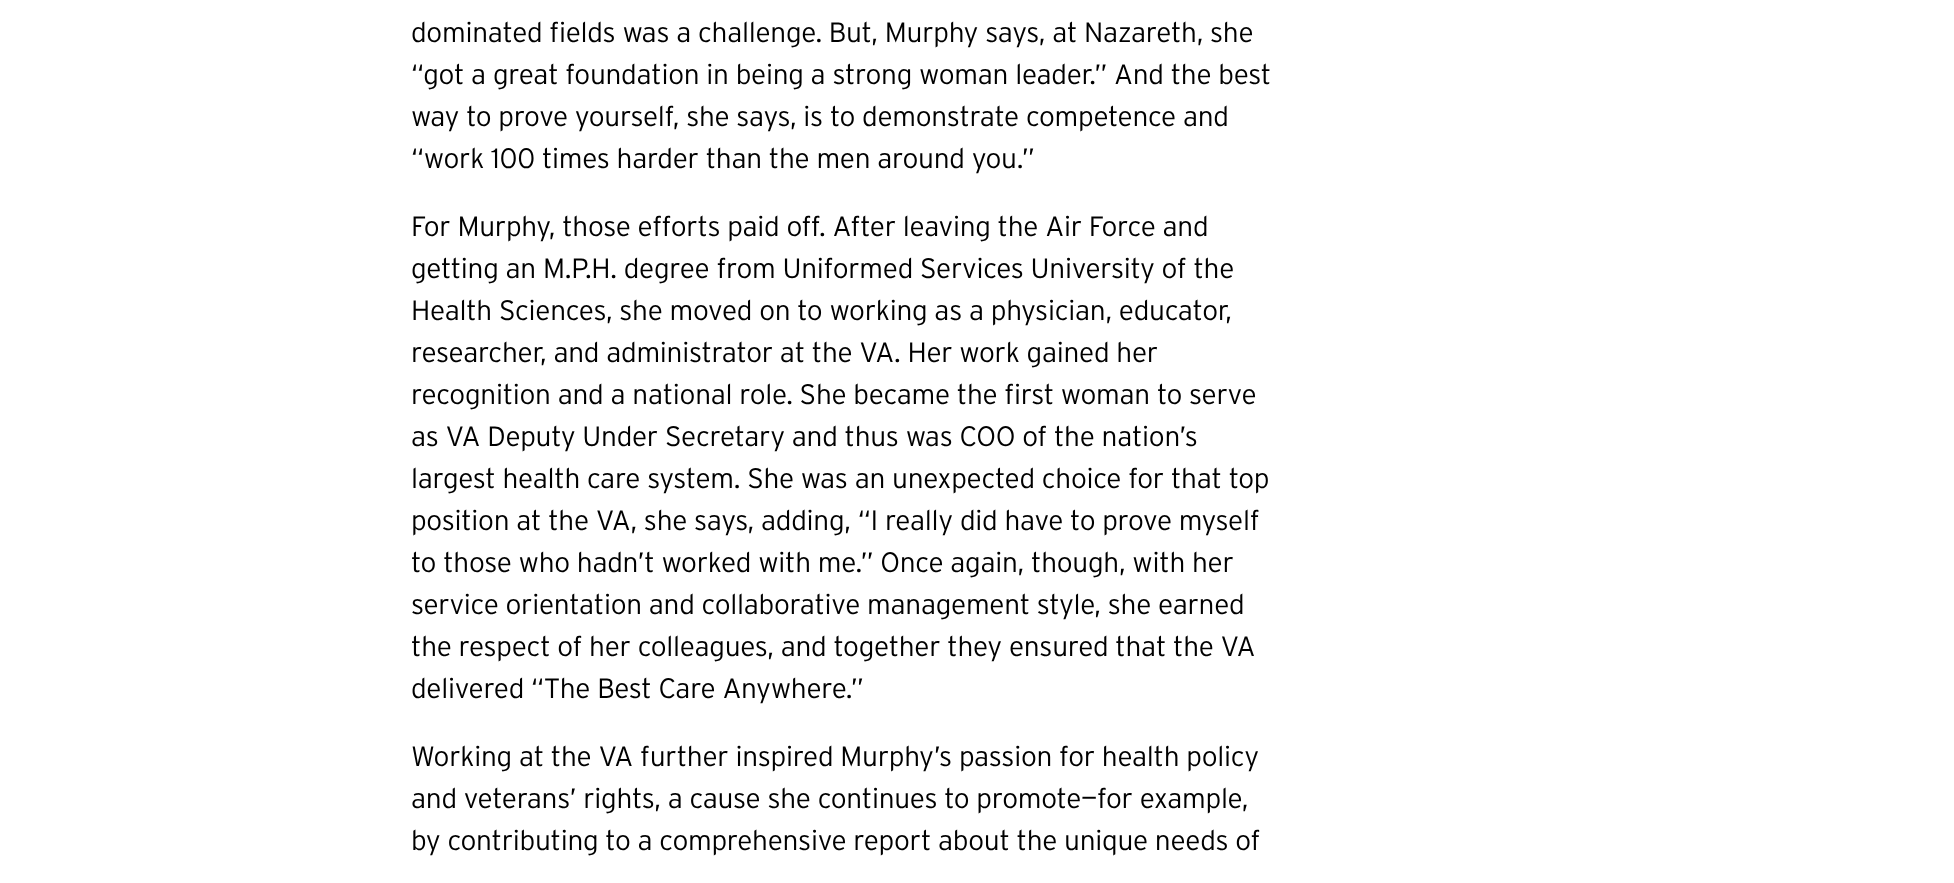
<!DOCTYPE html>
<meta charset="utf-8">
<style>body { margin: 0 } canvas { display: block }</style>
<canvas id="canvas" width="1954" height="883"></canvas>
<script>
window.onload = function () {
    const canvas = document.getElementById('canvas');
    const context = canvas.getContext('2d');
    context.miterLimit = 4;
    context.fontKerning = 'normal';

    context.fillStyle = 'rgb(255, 255, 255)';
    context.fillRect(0, 0, 1954, 883);
    context.letterSpacing = '-0.28px';
    context.font = '300 28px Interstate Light';
    context.fillStyle = 'rgb(0, 0, 0)';
    context.fillText('dominated fields was a challenge. But, Murphy says, at Nazareth, she', 411, 42);
    context.fillText('“got a great foundation in being a strong woman leader.” And the best', 411, 84);
    context.fillText('way to prove yourself, she says, is to demonstrate competence and', 411, 126);
    context.fillText('“work 100 times harder than the men around you.”', 411, 168);
    context.fillText('For Murphy, those efforts paid off. After leaving the Air Force and', 411, 236);
    context.fillText('getting an M.P.H. degree from Uniformed Services University of the', 411, 278);
    context.fillText('Health Sciences, she moved on to working as a physician, educator,', 411, 320);
    context.fillText('researcher, and administrator at the VA. Her work gained her', 411, 362);
    context.fillText('recognition and a national role. She became the first woman to serve', 411, 404);
    context.fillText('as VA Deputy Under Secretary and thus was COO of the nation’s', 411, 446);
    context.fillText('largest health care system. She was an unexpected choice for that top', 411, 488);
    context.fillText('position at the VA, she says, adding, “I really did have to prove myself', 411, 530);
    context.fillText('to those who hadn’t worked with me.” Once again, though, with her', 411, 572);
    context.fillText('service orientation and collaborative management style, she earned', 411, 614);
    context.fillText('the respect of her colleagues, and together they ensured that the VA', 411, 656);
    context.fillText('delivered “The Best Care Anywhere.”', 411, 698);
    context.fillText('Working at the VA further inspired Murphy’s passion for health policy', 411, 766);
    context.fillText('and veterans’ rights, a cause she continues to promote—for example,', 411, 808);
    context.fillText('by contributing to a comprehensive report about the unique needs of', 411, 850);
};
</script>
